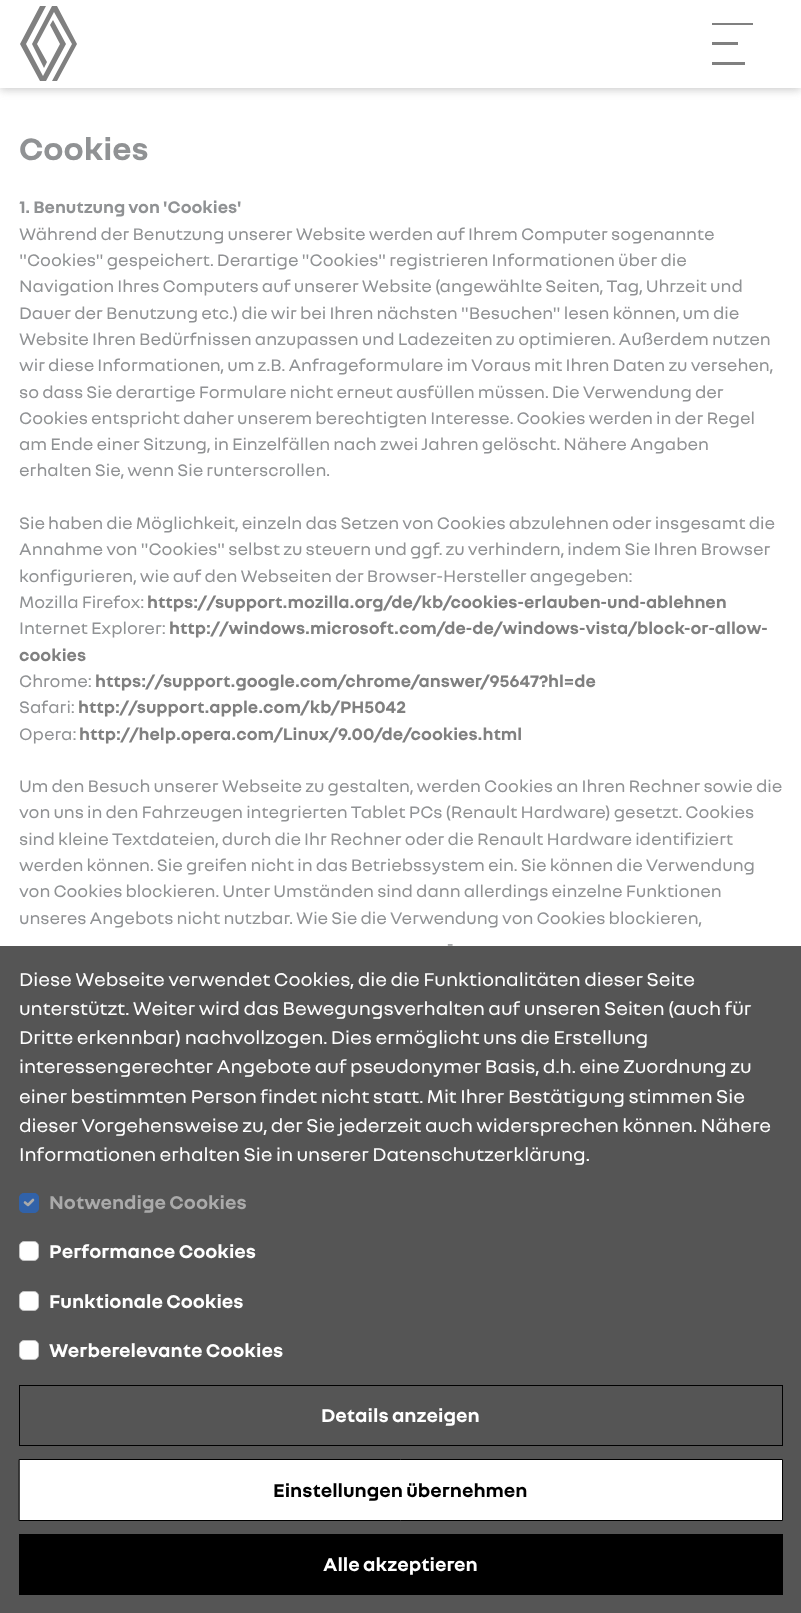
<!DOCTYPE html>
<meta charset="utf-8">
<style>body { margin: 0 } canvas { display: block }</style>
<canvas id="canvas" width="801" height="1613"></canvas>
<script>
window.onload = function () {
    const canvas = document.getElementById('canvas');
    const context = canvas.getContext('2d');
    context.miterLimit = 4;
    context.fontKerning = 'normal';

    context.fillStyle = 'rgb(255, 255, 255)';
    context.fillRect(0, 0, 801, 1613);
    context.fillStyle = 'rgba(128, 128, 128, 0.4)';
    context.filter = 'blur(4.5px)';
    context.beginPath();
    context.rect(0, 3, 801, 87);
    context.fill();
    context.filter = 'none';
    context.fillStyle = 'rgb(255, 255, 255)';
    context.fillRect(0, 0, 801, 88);
    context.fillStyle = 'rgb(128, 128, 128)';
    context.beginPath();
    context.moveTo(66, 44);
    context.lineTo(46, 81);
    context.lineTo(40, 81);
    context.lineTo(20, 44);
    context.lineTo(40, 6);
    context.lineTo(46, 6);
    context.lineTo(26, 44);
    context.lineTo(43, 76);
    context.lineTo(60, 44);
    context.lineTo(50, 25);
    context.lineTo(53, 20);
    context.closePath();
    context.moveTo(57, 6);
    context.lineTo(52, 6);
    context.lineTo(32, 44);
    context.lineTo(44, 68);
    context.lineTo(47, 62);
    context.lineTo(37, 44);
    context.lineTo(54, 12);
    context.lineTo(72, 44);
    context.lineTo(52, 81);
    context.lineTo(57, 81);
    context.lineTo(77, 44);
    context.closePath();
    context.fill();
    context.beginPath();
    context.moveTo(753, 23);
    context.lineTo(753, 25);
    context.lineTo(712, 25);
    context.lineTo(712, 23);
    context.closePath();
    context.moveTo(738, 42);
    context.lineTo(712, 42);
    context.lineTo(712, 45);
    context.lineTo(738, 45);
    context.closePath();
    context.moveTo(712, 65);
    context.lineTo(745, 65);
    context.lineTo(745, 62);
    context.lineTo(712, 62);
    context.closePath();
    context.fill();
    context.fillStyle = 'rgb(85, 85, 85)';
    context.fillRect(0, 946, 801, 667);
    context.fillStyle = 'rgb(49, 98, 169)';
    context.beginPath();
    context.roundRect(19, 1193, 20, 20, 5);
    context.fill();
    context.beginPath();
    context.moveTo(25, 1202.5);
    context.lineTo(28, 1205);
    context.lineTo(33, 1200);
    context.strokeStyle = 'rgb(170, 170, 170)';
    context.lineWidth = 2.6;
    context.lineCap = 'round';
    context.lineJoin = 'round';
    context.stroke();
    context.beginPath();
    context.roundRect(19.5, 1193.5, 19, 19, 4.5);
    context.strokeStyle = 'rgb(49, 98, 169)';
    context.lineWidth = 1;
    context.lineJoin = 'miter';
    context.stroke();
    context.fillStyle = 'rgb(255, 255, 255)';
    context.beginPath();
    context.roundRect(19.5, 1241.5, 19, 19, 4.5);
    context.fill();
    context.strokeStyle = 'rgb(192, 192, 192)';
    context.stroke();
    context.beginPath();
    context.roundRect(19.5, 1291.5, 19, 19, 4.5);
    context.fill();
    context.stroke();
    context.beginPath();
    context.roundRect(19.5, 1340.5, 19, 19, 4.5);
    context.fill();
    context.stroke();
    context.strokeStyle = 'rgb(0, 0, 0)';
    context.strokeRect(19.5, 1385.5, 763, 60);
    context.beginPath();
    context.rect(19.5, 1459.5, 763, 61);
    context.fill();
    context.stroke();
    context.fillStyle = 'rgb(0, 0, 0)';
    context.fillRect(19, 1534, 764, 61);
    context.font = 'bold 33.5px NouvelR';
    context.fillStyle = 'rgb(144, 146, 148)';
    context.fillText('Cookies', 19, 160);
    context.font = 'bold 18px NouvelR';
    context.fillText('1. Benutzung von \'Cookies\'', 19, 213);
    context.font = '18px NouvelR';
    context.fillText('Während der Benutzung unserer Website werden auf Ihrem Computer sogenannte', 19, 240);
    context.fillText('"Cookies" gespeichert. Derartige "Cookies" registrieren Informationen über die', 19, 266);
    context.fillText('Navigation Ihres Computers auf unserer Website (angewählte Seiten, Tag, Uhrzeit und', 19, 292);
    context.fillText('Dauer der Benutzung etc.) die wir bei Ihren nächsten "Besuchen" lesen können, um die', 19, 319);
    context.fillText('Website Ihren Bedürfnissen anzupassen und Ladezeiten zu optimieren. Außerdem nutzen', 19, 345);
    context.fillText('wir diese Informationen, um z.B. Anfrageformulare im Voraus mit Ihren Daten zu versehen,', 19, 371);
    context.fillText('so dass Sie derartige Formulare nicht erneut ausfüllen müssen. Die Verwendung der', 19, 398);
    context.fillText('Cookies entspricht daher unserem berechtigten Interesse. Cookies werden in der Regel', 19, 424);
    context.fillText('am Ende einer Sitzung, in Einzelfällen nach zwei Jahren gelöscht. Nähere Angaben', 19, 450);
    context.fillText('erhalten Sie, wenn Sie runterscrollen.', 19, 476);
    context.fillText('Sie haben die Möglichkeit, einzeln das Setzen von Cookies abzulehnen oder insgesamt die', 19, 529);
    context.fillText('Annahme von "Cookies" selbst zu steuern und ggf. zu verhindern, indem Sie Ihren Browser', 19, 555);
    context.fillText('konfigurieren, wie auf den Webseiten der Browser-Hersteller angegeben:', 19, 582);
    context.fillText('Mozilla Firefox:', 19, 608);
    context.font = 'bold 18px NouvelR';
    context.fillStyle = 'rgb(128, 128, 128)';
    context.fillText('https://support.mozilla.org/de/kb/cookies-erlauben-und-ablehnen', 147, 608);
    context.font = '18px NouvelR';
    context.fillStyle = 'rgb(144, 146, 148)';
    context.fillText('Internet Explorer:', 19, 634);
    context.font = 'bold 18px NouvelR';
    context.fillStyle = 'rgb(128, 128, 128)';
    context.fillText('http://windows.microsoft.com/de-de/windows-vista/block-or-allow-', 169, 634);
    context.fillText('cookies', 19, 661);
    context.font = '18px NouvelR';
    context.fillStyle = 'rgb(144, 146, 148)';
    context.fillText('Chrome:', 19, 687);
    context.font = 'bold 18px NouvelR';
    context.fillStyle = 'rgb(128, 128, 128)';
    context.fillText('https://support.google.com/chrome/answer/95647?hl=de', 95, 687);
    context.font = '18px NouvelR';
    context.fillStyle = 'rgb(144, 146, 148)';
    context.fillText('Safari:', 19, 713);
    context.font = 'bold 18px NouvelR';
    context.fillStyle = 'rgb(128, 128, 128)';
    context.fillText('http://support.apple.com/kb/PH5042', 78, 713);
    context.font = '18px NouvelR';
    context.fillStyle = 'rgb(144, 146, 148)';
    context.fillText('Opera:', 19, 740);
    context.font = 'bold 18px NouvelR';
    context.fillStyle = 'rgb(128, 128, 128)';
    context.fillText('http://help.opera.com/Linux/9.00/de/cookies.html', 79, 740);
    context.font = '18px NouvelR';
    context.fillStyle = 'rgb(144, 146, 148)';
    context.fillText('Um den Besuch unserer Webseite zu gestalten, werden Cookies an Ihren Rechner sowie die', 19, 792);
    context.fillText('von uns in den Fahrzeugen integrierten Tablet PCs (Renault Hardware) gesetzt. Cookies', 19, 818);
    context.fillText('sind kleine Textdateien, durch die Ihr Rechner oder die Renault Hardware identifiziert', 19, 845);
    context.fillText('werden können. Sie greifen nicht in das Betriebssystem ein. Sie können die Verwendung', 19, 871);
    context.fillText('von Cookies blockieren. Unter Umständen sind dann allerdings einzelne Funktionen', 19, 897);
    context.fillText('unseres Angebots nicht nutzbar. Wie Sie die Verwendung von Cookies blockieren,', 19, 924);
    context.fillText('-', 447, 950);
    context.font = '20px NouvelR';
    context.fillStyle = 'rgb(255, 255, 255)';
    context.fillText('Diese Webseite verwendet Cookies, die die Funktionalitäten dieser Seite', 19, 986);
    context.fillText('unterstützt. Weiter wird das Bewegungsverhalten auf unseren Seiten (auch für', 19, 1015);
    context.fillText('Dritte erkennbar) nachvollzogen. Dies ermöglicht uns die Erstellung', 19, 1044);
    context.fillText('interessengerechter Angebote auf pseudonymer Basis, d.h. eine Zuordnung zu', 19, 1073);
    context.fillText('einer bestimmten Person findet nicht statt. Mit Ihrer Bestätigung stimmen Sie', 19, 1103);
    context.fillText('dieser Vorgehensweise zu, der Sie jederzeit auch widersprechen können. Nähere', 19, 1132);
    context.fillText('Informationen erhalten Sie in unserer Datenschutzerklärung.', 19, 1161);
    context.font = 'bold 20px NouvelR';
    context.fillStyle = 'rgb(170, 170, 170)';
    context.fillText('Notwendige Cookies', 49, 1209);
    context.fillStyle = 'rgb(255, 255, 255)';
    context.fillText('Performance Cookies', 49, 1258);
    context.fillText('Funktionale Cookies', 49, 1308);
    context.fillText('Werberelevante Cookies', 49, 1357);
    context.fillText('Details anzeigen', 321, 1422);
    context.fillStyle = 'rgb(0, 0, 0)';
    context.fillText('Einstellungen übernehmen', 273, 1497);
    context.fillStyle = 'rgb(255, 255, 255)';
    context.fillText('Alle akzeptieren', 323, 1571);
};
</script>
